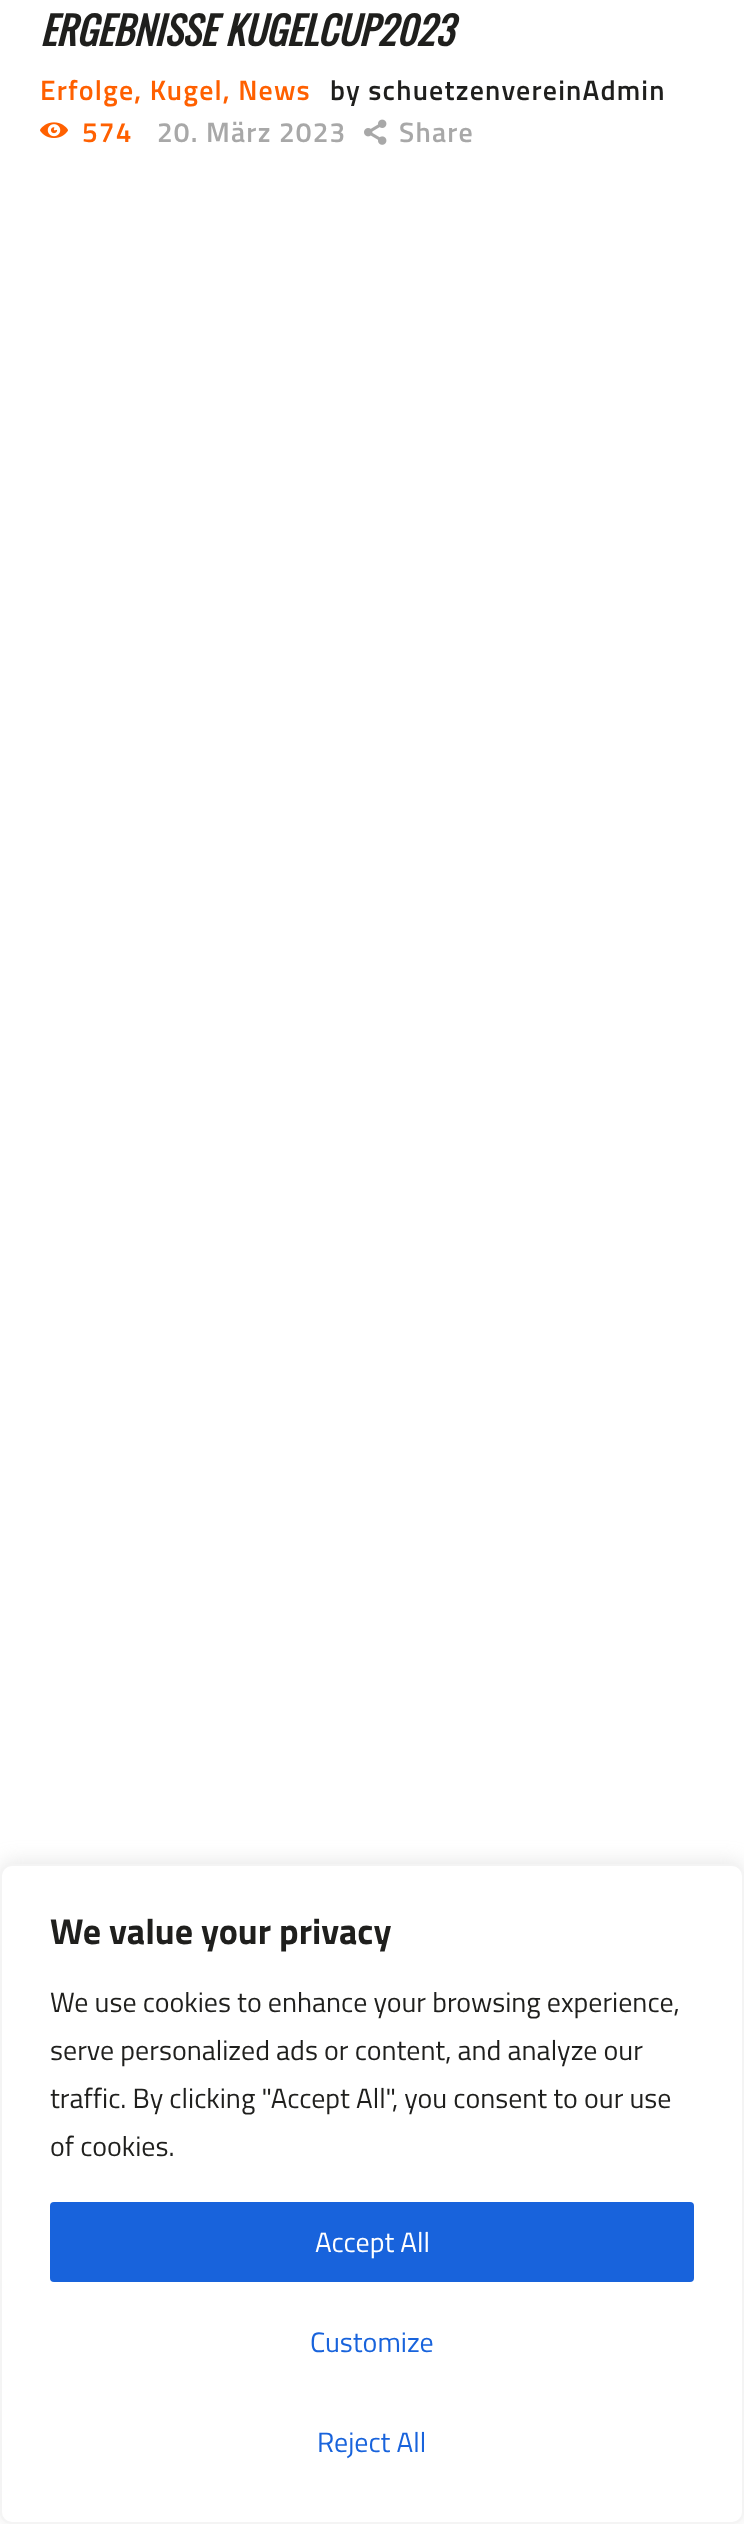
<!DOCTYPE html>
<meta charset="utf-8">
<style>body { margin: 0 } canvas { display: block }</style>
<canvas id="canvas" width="744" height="2524"></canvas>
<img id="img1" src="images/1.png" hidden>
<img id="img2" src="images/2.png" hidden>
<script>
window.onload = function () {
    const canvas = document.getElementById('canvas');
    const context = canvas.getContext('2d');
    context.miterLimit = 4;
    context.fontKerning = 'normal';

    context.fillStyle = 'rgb(255, 255, 255)';
    context.fillRect(0, 0, 744, 2524);
    context.drawImage(document.getElementById('img1'), 40, 122, 28, 16);
    context.drawImage(document.getElementById('img2'), 364, 119, 23, 26);
    context.fillStyle = 'rgba(172, 171, 171, 0.3)';
    context.filter = 'blur(10px)';
    context.beginPath();
    context.roundRect(0, 1862, 744, 660, 12);
    context.fill();
    context.filter = 'none';
    context.fillStyle = 'rgb(255, 255, 255)';
    context.beginPath();
    context.roundRect(1, 1865, 742, 658, 11);
    context.fill();
    context.strokeStyle = 'rgb(244, 244, 244)';
    context.lineWidth = 2;
    context.stroke();
    context.fillStyle = 'rgb(24, 99, 220)';
    context.beginPath();
    context.roundRect(50, 2202, 644, 80, 4);
    context.fill();
    context.font = 'italic bold 39px Oswald';
    context.fillStyle = 'rgb(31, 31, 29)';
    context.fillText('ERGEBNISSE KUGELCUP2023', 40, 46);
    context.letterSpacing = '1.2px';
    context.font = '600 28px Titillium Web';
    context.fillStyle = 'rgb(255, 96, 0)';
    context.fillText('Erfolge, Kugel, News', 40, 100);
    context.fillStyle = 'rgb(31, 31, 29)';
    context.fillText('by schuetzenvereinAdmin', 330, 100);
    context.fillStyle = 'rgb(255, 96, 0)';
    context.fillText('574', 82, 142);
    context.fillStyle = 'rgb(168, 168, 168)';
    context.fillText('20. März 2023', 157, 142);
    context.fillText('Share', 399, 142);
    context.letterSpacing = '0px';
    context.font = 'bold 36px Titillium Web';
    context.fillStyle = 'rgb(31, 31, 29)';
    context.fillText('We value your privacy', 50, 1944);
    context.font = '28px Titillium Web';
    context.fillText('We use cookies to enhance your browsing experience,', 50, 2012);
    context.fillText('serve personalized ads or content, and analyze our', 50, 2060);
    context.fillText('traffic. By clicking "Accept All", you consent to our use', 50, 2108);
    context.fillText('of cookies.', 50, 2156);
    context.fillStyle = 'rgb(255, 255, 255)';
    context.fillText('Accept All', 315, 2252);
    context.fillStyle = 'rgb(24, 99, 220)';
    context.fillText('Customize', 310, 2352);
    context.fillText('Reject All', 317, 2452);
};
</script>
